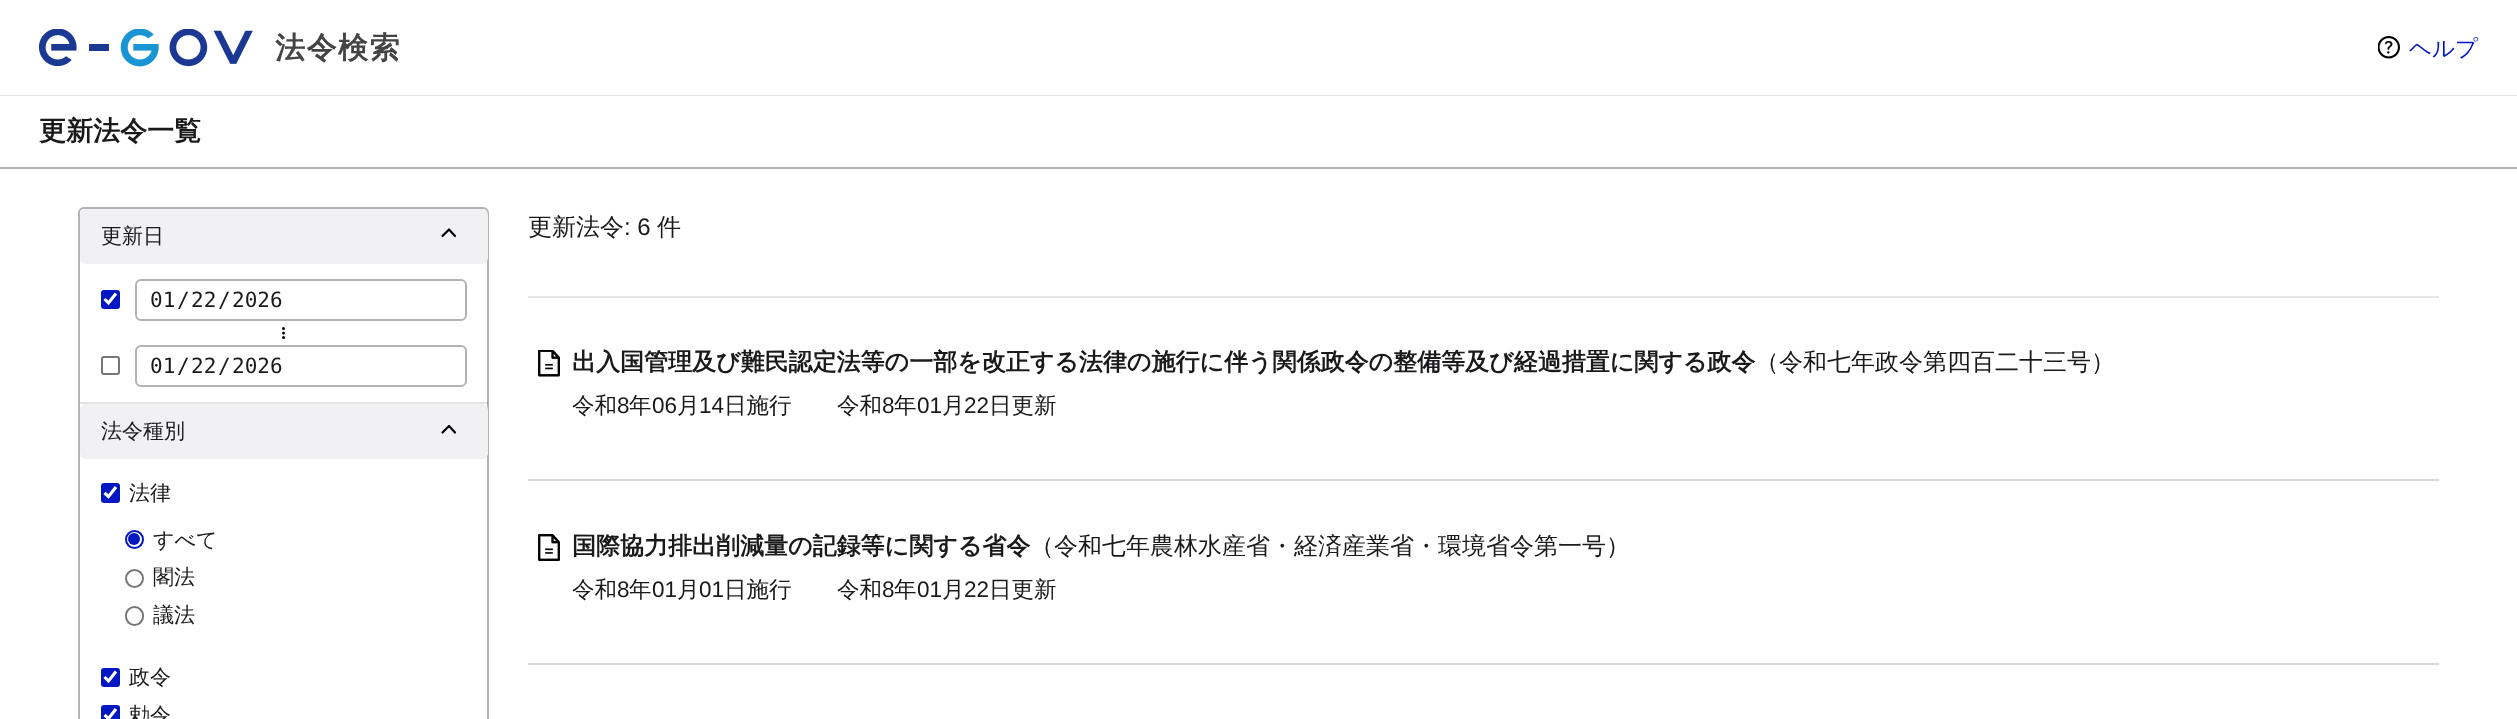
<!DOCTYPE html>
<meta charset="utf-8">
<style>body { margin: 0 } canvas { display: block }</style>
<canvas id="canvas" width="2517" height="719"></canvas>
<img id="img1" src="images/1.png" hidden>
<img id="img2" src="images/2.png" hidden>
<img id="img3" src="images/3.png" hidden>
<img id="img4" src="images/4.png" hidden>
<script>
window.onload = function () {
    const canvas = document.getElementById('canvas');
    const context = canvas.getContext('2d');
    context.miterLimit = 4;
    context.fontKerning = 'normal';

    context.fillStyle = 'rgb(255, 255, 255)';
    context.fillRect(0, 0, 2517, 719);
    context.fillStyle = 'rgb(230, 230, 230)';
    context.fillRect(0, 95, 2517, 1);
    context.drawImage(document.getElementById('img1'), 39, 29, 214, 38);
    context.drawImage(document.getElementById('img2'), 2378, 36, 22, 23);
    context.fillStyle = 'rgb(179, 179, 179)';
    context.fillRect(0, 167, 2517, 2);
    context.beginPath();
    context.roundRect(79, 208, 409, 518, 5);
    context.strokeStyle = 'rgb(179, 179, 179)';
    context.lineWidth = 2;
    context.stroke();
    context.fillStyle = 'rgba(0, 0, 0, 0.1)';
    context.fillRect(80, 402, 408, 2);
    context.fillStyle = 'rgb(241, 241, 244)';
    context.beginPath();
    context.roundRect(80, 209, 408, 55, 6);
    context.fill();
    context.beginPath();
    context.moveTo(455, 236);
    context.lineTo(449, 229.5);
    context.lineTo(442.5, 236);
    context.strokeStyle = 'rgb(0, 0, 0)';
    context.lineWidth = 2.2;
    context.lineCap = 'round';
    context.lineJoin = 'round';
    context.stroke();
    context.fillStyle = 'rgb(0, 23, 193)';
    context.beginPath();
    context.roundRect(101, 290, 19, 19, 3);
    context.fill();
    context.beginPath();
    context.moveTo(104.5, 299);
    context.lineTo(108.5, 303);
    context.lineTo(116, 293.5);
    context.strokeStyle = 'rgb(255, 255, 255)';
    context.lineWidth = 3.1;
    context.lineCap = 'butt';
    context.lineJoin = 'miter';
    context.stroke();
    context.beginPath();
    context.roundRect(136, 280, 330, 40, 5);
    context.strokeStyle = 'rgb(179, 179, 179)';
    context.lineWidth = 2;
    context.stroke();
    context.fillStyle = 'rgb(0, 0, 0)';
    context.beginPath();
    context.arc(283.5, 328.5, 1.5, 0, 2 * Math.PI);
    context.fill();
    context.beginPath();
    context.arc(283.5, 333, 1.5, 0, 2 * Math.PI);
    context.fill();
    context.beginPath();
    context.arc(283.5, 337.5, 1.5, 0, 2 * Math.PI);
    context.fill();
    context.beginPath();
    context.roundRect(102, 357, 17, 17, 2);
    context.strokeStyle = 'rgb(118, 118, 118)';
    context.stroke();
    context.beginPath();
    context.roundRect(136, 346, 330, 40, 5);
    context.strokeStyle = 'rgb(179, 179, 179)';
    context.stroke();
    context.fillStyle = 'rgb(241, 241, 244)';
    context.beginPath();
    context.roundRect(80, 404, 408, 55, 6);
    context.fill();
    context.beginPath();
    context.moveTo(455, 432.5);
    context.lineTo(449, 426);
    context.lineTo(442.5, 432.5);
    context.strokeStyle = 'rgb(0, 0, 0)';
    context.lineWidth = 2.2;
    context.lineCap = 'round';
    context.lineJoin = 'round';
    context.stroke();
    context.fillStyle = 'rgb(0, 23, 193)';
    context.beginPath();
    context.roundRect(101, 483, 19, 20, 3);
    context.fill();
    context.beginPath();
    context.moveTo(104.5, 493);
    context.lineTo(108.5, 496.5);
    context.lineTo(116, 487);
    context.strokeStyle = 'rgb(255, 255, 255)';
    context.lineWidth = 3.1;
    context.lineCap = 'butt';
    context.lineJoin = 'miter';
    context.stroke();
    context.beginPath();
    context.arc(134.5, 539.5, 8.5, 0, 2 * Math.PI);
    context.strokeStyle = 'rgb(0, 23, 193)';
    context.lineWidth = 2;
    context.stroke();
    context.beginPath();
    context.arc(134, 539, 6, 0, 2 * Math.PI);
    context.fill();
    context.beginPath();
    context.arc(134.5, 578.5, 8.5, 0, 2 * Math.PI);
    context.strokeStyle = 'rgb(118, 118, 118)';
    context.stroke();
    context.beginPath();
    context.roundRect(126, 607, 17, 18, 8.5);
    context.stroke();
    context.beginPath();
    context.roundRect(101, 668, 19, 19, 3);
    context.fill();
    context.beginPath();
    context.moveTo(104.5, 677);
    context.lineTo(108.5, 681);
    context.lineTo(116, 671.5);
    context.strokeStyle = 'rgb(255, 255, 255)';
    context.lineWidth = 3.1;
    context.stroke();
    context.beginPath();
    context.roundRect(101, 705, 19, 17, 3);
    context.fill();
    context.beginPath();
    context.moveTo(104.5, 715);
    context.lineTo(108.5, 718.5);
    context.lineTo(116, 709);
    context.stroke();
    context.fillStyle = 'rgb(230, 230, 230)';
    context.fillRect(528, 296, 1911, 2);
    context.fillStyle = 'rgb(215, 215, 215)';
    context.fillRect(528, 479, 1911, 2);
    context.drawImage(document.getElementById('img3'), 538, 350, 22, 27);
    context.fillRect(528, 663, 1911, 2);
    context.drawImage(document.getElementById('img4'), 538, 534, 22, 27);
    context.letterSpacing = '1.5px';
    context.font = 'bold 30px WenQuanYi Zen Hei';
    context.fillStyle = 'rgb(68, 68, 68)';
    context.fillText('法令検索', 275, 58);
    context.letterSpacing = '0px';
    context.font = '500 22.5px WenQuanYi Zen Hei';
    context.fillStyle = 'rgb(0, 23, 193)';
    context.fillText('ヘルプ', 2409, 56);
    context.font = 'bold 27px WenQuanYi Zen Hei';
    context.fillStyle = 'rgb(26, 26, 28)';
    context.fillText('更新法令一覧', 39, 140);
    context.font = '500 21px WenQuanYi Zen Hei';
    context.fillText('更新日', 101, 243);
    context.font = '21px DejaVu Sans Mono';
    context.fillText('01', 150, 307);
    context.fillText('/', 177, 307);
    context.fillText('22', 191, 307);
    context.fillText('/', 218, 307);
    context.fillText('2026', 232, 307);
    context.fillText('01', 150, 373);
    context.fillText('/', 177, 373);
    context.fillText('22', 191, 373);
    context.fillText('/', 218, 373);
    context.fillText('2026', 232, 373);
    context.font = '500 21px WenQuanYi Zen Hei';
    context.fillText('法令種別', 101, 438);
    context.fillText('法律', 129, 500);
    context.fillText('すべて', 153, 547);
    context.fillText('閣法', 153, 584);
    context.fillText('議法', 153, 622);
    context.fillText('政令', 129, 684);
    context.fillText('勅令', 129, 722);
    context.font = '500 24px WenQuanYi Zen Hei';
    context.fillText('更新法令', 528, 235);
    context.font = '24px Liberation Sans';
    context.fillText(': 6', 624, 235);
    context.font = '500 24px WenQuanYi Zen Hei';
    context.fillText('件', 657, 235);
    context.font = 'bold 24px WenQuanYi Zen Hei';
    context.fillText('出入国管理及び難民認定法等の一部を改正する法律の施行に伴う関係政令の整備等及び経過措置に関する政令', 572, 370);
    context.font = '500 24px WenQuanYi Zen Hei';
    context.fillText('（令和七年政令第四百二十三号）', 1755, 370);
    context.font = '500 22.5px WenQuanYi Zen Hei';
    context.fillText('令和', 572, 413);
    context.font = '22.5px Liberation Sans';
    context.fillText('8', 617, 413);
    context.font = '500 22.5px WenQuanYi Zen Hei';
    context.fillText('年', 629, 413);
    context.font = '22.5px Liberation Sans';
    context.fillText('06', 652, 413);
    context.font = '500 22.5px WenQuanYi Zen Hei';
    context.fillText('月', 677, 413);
    context.font = '22.5px Liberation Sans';
    context.fillText('14', 699, 413);
    context.font = '500 22.5px WenQuanYi Zen Hei';
    context.fillText('日施行', 724, 413);
    context.fillText('令和', 837, 413);
    context.font = '22.5px Liberation Sans';
    context.fillText('8', 882, 413);
    context.font = '500 22.5px WenQuanYi Zen Hei';
    context.fillText('年', 894, 413);
    context.font = '22.5px Liberation Sans';
    context.fillText('01', 917, 413);
    context.font = '500 22.5px WenQuanYi Zen Hei';
    context.fillText('月', 942, 413);
    context.font = '22.5px Liberation Sans';
    context.fillText('22', 964, 413);
    context.font = '500 22.5px WenQuanYi Zen Hei';
    context.fillText('日更新', 989, 413);
    context.font = 'bold 24px WenQuanYi Zen Hei';
    context.fillText('国際協力排出削減量の記録等に関する省令', 572, 554);
    context.font = '500 24px WenQuanYi Zen Hei';
    context.fillText('（令和七年農林水産省・経済産業省・環境省令第一号）', 1030, 554);
    context.font = '500 22.5px WenQuanYi Zen Hei';
    context.fillText('令和', 572, 597);
    context.font = '22.5px Liberation Sans';
    context.fillText('8', 617, 597);
    context.font = '500 22.5px WenQuanYi Zen Hei';
    context.fillText('年', 629, 597);
    context.font = '22.5px Liberation Sans';
    context.fillText('01', 652, 597);
    context.font = '500 22.5px WenQuanYi Zen Hei';
    context.fillText('月', 677, 597);
    context.font = '22.5px Liberation Sans';
    context.fillText('01', 699, 597);
    context.font = '500 22.5px WenQuanYi Zen Hei';
    context.fillText('日施行', 724, 597);
    context.fillText('令和', 837, 597);
    context.font = '22.5px Liberation Sans';
    context.fillText('8', 882, 597);
    context.font = '500 22.5px WenQuanYi Zen Hei';
    context.fillText('年', 894, 597);
    context.font = '22.5px Liberation Sans';
    context.fillText('01', 917, 597);
    context.font = '500 22.5px WenQuanYi Zen Hei';
    context.fillText('月', 942, 597);
    context.font = '22.5px Liberation Sans';
    context.fillText('22', 964, 597);
    context.font = '500 22.5px WenQuanYi Zen Hei';
    context.fillText('日更新', 989, 597);
};
</script>
